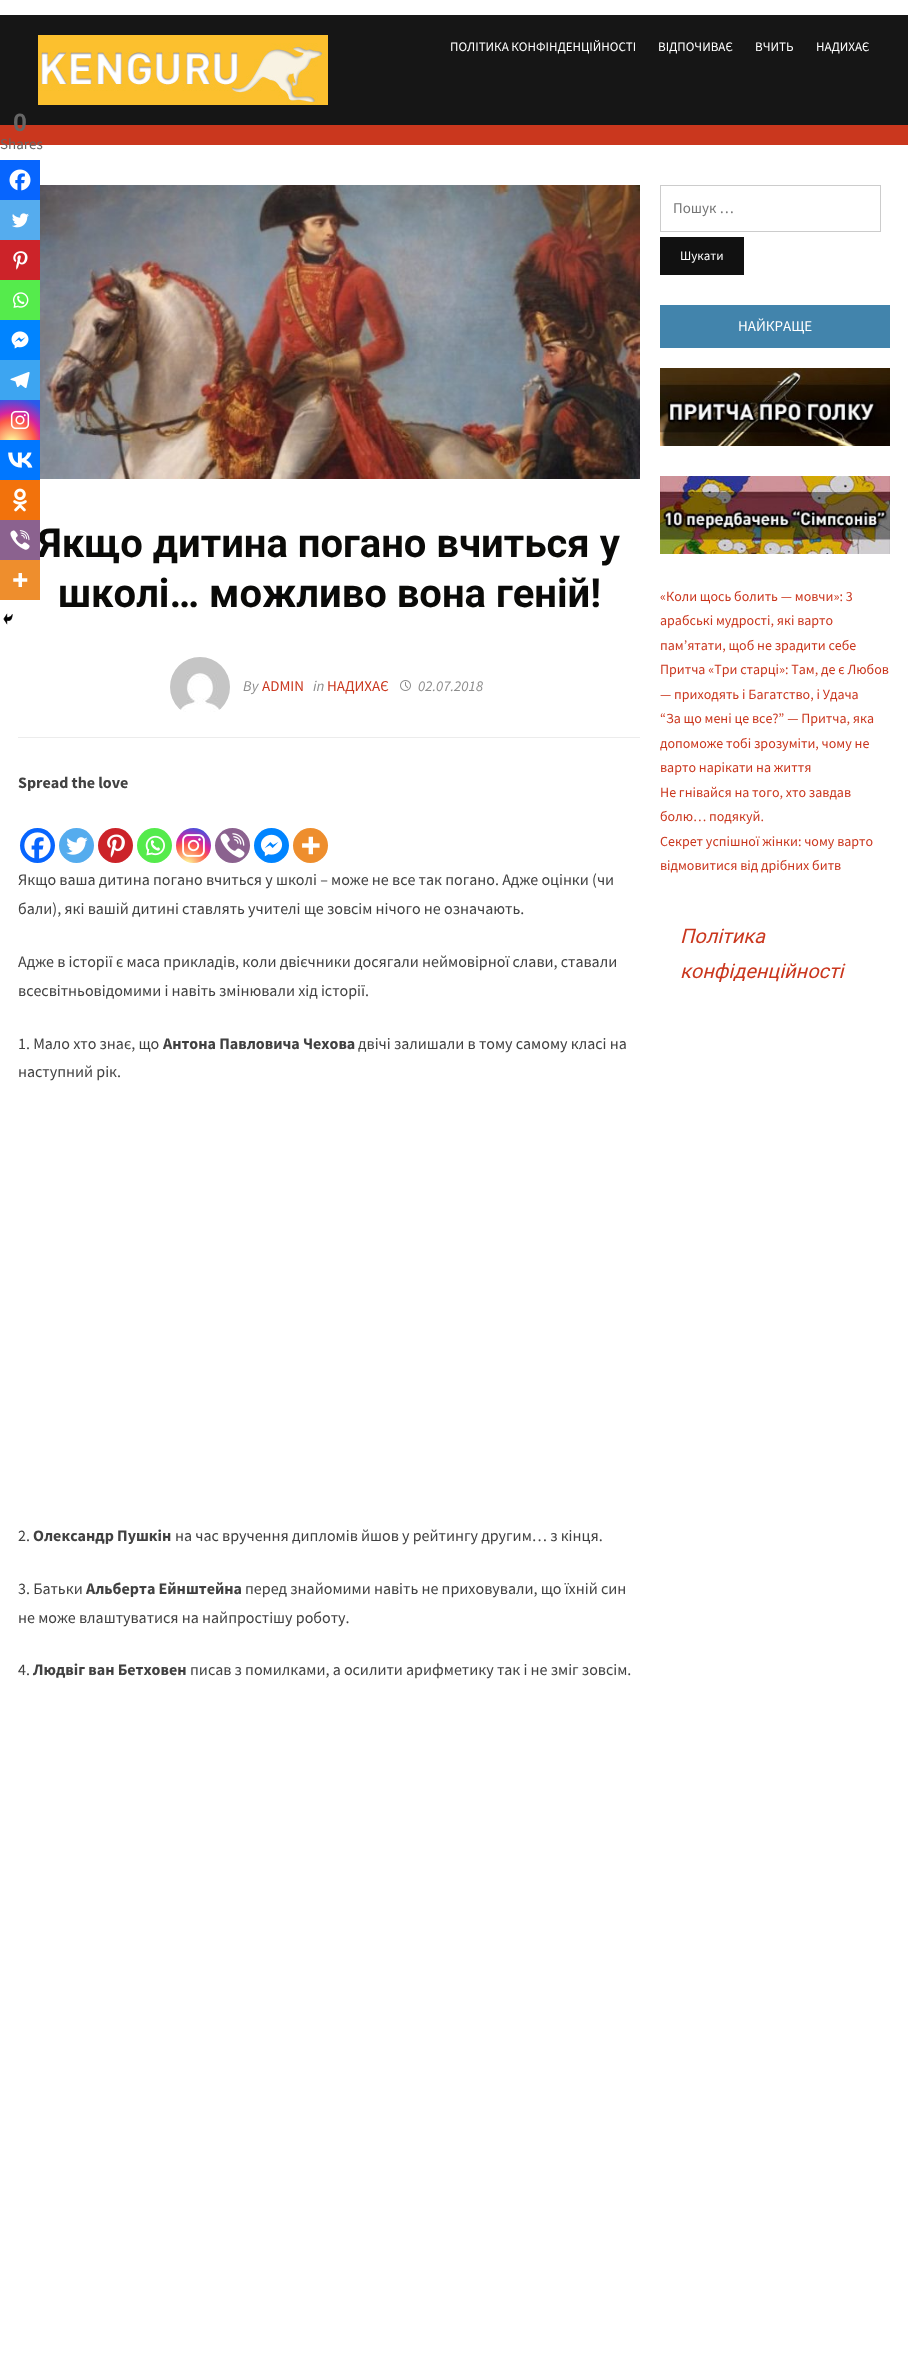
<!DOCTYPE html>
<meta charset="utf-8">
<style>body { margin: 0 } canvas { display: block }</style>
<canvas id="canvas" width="908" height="2379"></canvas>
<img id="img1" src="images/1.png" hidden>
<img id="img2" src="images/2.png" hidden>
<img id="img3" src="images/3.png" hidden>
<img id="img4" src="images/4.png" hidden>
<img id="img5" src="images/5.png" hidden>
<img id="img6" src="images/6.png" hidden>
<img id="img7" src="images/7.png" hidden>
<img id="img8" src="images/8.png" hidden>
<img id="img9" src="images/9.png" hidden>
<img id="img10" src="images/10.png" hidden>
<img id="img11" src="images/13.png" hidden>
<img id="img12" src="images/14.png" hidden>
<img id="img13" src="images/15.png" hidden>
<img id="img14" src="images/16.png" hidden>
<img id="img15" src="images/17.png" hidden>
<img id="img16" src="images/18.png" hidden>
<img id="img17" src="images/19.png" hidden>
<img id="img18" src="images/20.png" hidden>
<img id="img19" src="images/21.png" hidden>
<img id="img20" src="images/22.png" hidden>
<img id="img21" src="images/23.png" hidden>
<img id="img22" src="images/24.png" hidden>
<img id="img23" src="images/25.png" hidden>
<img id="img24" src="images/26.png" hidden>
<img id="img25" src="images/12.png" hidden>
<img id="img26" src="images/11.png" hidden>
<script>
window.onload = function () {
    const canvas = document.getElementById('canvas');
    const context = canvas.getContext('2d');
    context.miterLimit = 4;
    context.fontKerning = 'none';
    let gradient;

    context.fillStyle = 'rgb(255, 255, 255)';
    context.fillRect(0, 0, 908, 2379);
    context.fillStyle = 'rgb(22, 22, 22)';
    context.fillRect(0, 15, 908, 110);
    context.drawImage(document.getElementById('img1'), 38, 35, 290, 70);
    context.fillStyle = 'rgb(202, 55, 30)';
    context.fillRect(0, 125, 908, 20);
    context.fillStyle = 'rgb(7, 101, 254)';
    context.fillRect(0, 160, 40, 40);
    context.drawImage(document.getElementById('img2'), 9, 169, 22, 22);
    context.fillStyle = 'rgb(85, 172, 238)';
    context.fillRect(0, 200, 40, 40);
    context.drawImage(document.getElementById('img3'), 12, 213, 17, 15);
    context.fillStyle = 'rgb(204, 35, 41)';
    context.fillRect(0, 240, 40, 40);
    context.drawImage(document.getElementById('img4'), 13, 251, 15, 19);
    context.fillStyle = 'rgb(85, 235, 76)';
    context.fillRect(0, 280, 40, 40);
    context.drawImage(document.getElementById('img5'), 13, 292, 16, 16);
    context.fillStyle = 'rgb(0, 132, 255)';
    context.fillRect(0, 320, 40, 40);
    context.drawImage(document.getElementById('img6'), 11, 331, 18, 18);
    context.fillStyle = 'rgb(61, 165, 241)';
    context.fillRect(0, 360, 40, 40);
    context.drawImage(document.getElementById('img7'), 10, 372, 20, 16);
    gradient = context.createRadialGradient(12, 443, 0, 12, 443, 51);
    gradient.addColorStop(0, 'rgb(253, 244, 151)');
    gradient.addColorStop(0.05, 'rgb(253, 244, 151)');
    gradient.addColorStop(0.45, 'rgb(253, 89, 73)');
    gradient.addColorStop(0.6, 'rgb(214, 36, 159)');
    gradient.addColorStop(0.9, 'rgb(40, 90, 235)');
    context.fillStyle = gradient;
    context.fillRect(0, 400, 40, 40);
    context.drawImage(document.getElementById('img8'), 10, 410, 20, 20);
    context.fillStyle = 'rgb(0, 119, 255)';
    context.fillRect(0, 440, 40, 40);
    context.drawImage(document.getElementById('img9'), 8, 452, 25, 16);
    context.fillStyle = 'rgb(242, 114, 12)';
    context.fillRect(0, 480, 40, 40);
    context.drawImage(document.getElementById('img10'), 13, 488, 14, 24);
    context.drawImage(document.getElementById('img11'), 3, 613, 10, 12);
    context.fillStyle = 'rgb(7, 101, 254)';
    context.beginPath();
    context.arc(37.5, 845.5, 17.5, 0, 2 * Math.PI);
    context.fill();
    context.drawImage(document.getElementById('img12'), 24, 832, 27, 27);
    context.fillStyle = 'rgb(85, 172, 238)';
    context.beginPath();
    context.arc(76.5, 845.5, 17.5, 0, 2 * Math.PI);
    context.fill();
    context.drawImage(document.getElementById('img13'), 66, 837, 22, 18);
    context.fillStyle = 'rgb(204, 35, 41)';
    context.beginPath();
    context.arc(115.5, 845.5, 17.5, 0, 2 * Math.PI);
    context.fill();
    context.drawImage(document.getElementById('img14'), 107, 834, 18, 24);
    context.fillStyle = 'rgb(85, 235, 76)';
    context.beginPath();
    context.arc(154.5, 845.5, 17.5, 0, 2 * Math.PI);
    context.fill();
    context.drawImage(document.getElementById('img15'), 145, 835, 20, 21);
    gradient = context.createRadialGradient(187, 865, 0, 187, 865, 45);
    gradient.addColorStop(0, 'rgb(253, 244, 151)');
    gradient.addColorStop(0.05, 'rgb(253, 244, 151)');
    gradient.addColorStop(0.45, 'rgb(253, 89, 73)');
    gradient.addColorStop(0.6, 'rgb(214, 36, 159)');
    gradient.addColorStop(0.9, 'rgb(40, 90, 235)');
    context.fillStyle = gradient;
    context.beginPath();
    context.arc(193.5, 845.5, 17.5, 0, 2 * Math.PI);
    context.fill();
    context.drawImage(document.getElementById('img16'), 182, 834, 23, 23);
    context.fillStyle = 'rgb(139, 98, 143)';
    context.beginPath();
    context.arc(232.5, 845.5, 17.5, 0, 2 * Math.PI);
    context.fill();
    context.drawImage(document.getElementById('img17'), 220, 833, 25, 25);
    context.fillStyle = 'rgb(0, 132, 255)';
    context.beginPath();
    context.arc(271.5, 845.5, 17.5, 0, 2 * Math.PI);
    context.fill();
    context.drawImage(document.getElementById('img18'), 260, 834, 23, 23);
    context.fillStyle = 'rgb(238, 142, 45)';
    context.beginPath();
    context.arc(310.5, 845.5, 17.5, 0, 2 * Math.PI);
    context.fill();
    context.drawImage(document.getElementById('img19'), 302, 836, 18, 19);
    context.fillStyle = 'rgb(236, 236, 236)';
    context.fillRect(18, 737, 622, 1);
    context.drawImage(document.getElementById('img20'), 170, 657, 60, 55);
    context.drawImage(document.getElementById('img21'), 400, 680, 11, 11);
    context.drawImage(document.getElementById('img22'), 40, 185, 600, 294);
    context.strokeStyle = 'rgb(204, 204, 204)';
    context.strokeRect(660.5, 185.5, 220, 46);
    context.fillStyle = 'rgb(17, 17, 17)';
    context.fillRect(660, 237, 84, 38);
    context.fillStyle = 'rgb(66, 132, 172)';
    context.fillRect(660, 305, 230, 43);
    context.drawImage(document.getElementById('img23'), 660, 368, 230, 78);
    context.drawImage(document.getElementById('img24'), 660, 476, 230, 78);
    context.font = '13px Source Sans Pro';
    context.fillStyle = 'rgb(255, 255, 255)';
    context.fillText('ПОЛІТИКА КОНФІНДЕНЦІЙНОСТІ', 450, 51);
    context.fillText('ВІДПОЧИВАЄ', 658, 51);
    context.fillText('ВЧИТЬ', 755, 51);
    context.fillText('НАДИХАЄ', 816, 51);
    context.font = 'bold 25px Liberation Sans';
    context.fillStyle = 'rgb(102, 102, 102)';
    context.fillText('0', 13, 131);
    context.font = '15px Source Sans Pro';
    context.fillText('Shares', 0, 149);
    context.font = 'bold 16px Source Sans Pro';
    context.fillStyle = 'rgb(65, 65, 65)';
    context.fillText('Spread the love', 18, 788);
    context.font = '16px Source Sans Pro';
    context.fillText('Якщо ваша дитина погано вчиться у школі – може не все так погано. Адже оцінки (чи', 18, 885);
    context.fillText('бали), які вашій дитині ставлять учителі ще зовсім нічого не означають.', 18, 914);
    context.fillText('Адже в історії є маса прикладів, коли двієчники досягали неймовірної слави, ставали', 18, 967);
    context.fillText('всесвітньовідомими і навіть змінювали хід історії.', 18, 996);
    context.fillText('1. Мало хто знає, що', 18, 1049);
    context.font = 'bold 16px Source Sans Pro';
    context.fillText('Антона Павловича Чехова', 163, 1049);
    context.font = '16px Source Sans Pro';
    context.fillText('двічі залишали в тому самому класі на', 358, 1049);
    context.fillText('наступний рік.', 18, 1077);
    context.fillText('2.', 18, 1541);
    context.font = 'bold 16px Source Sans Pro';
    context.fillText('Олександр Пушкін', 33, 1541);
    context.font = '16px Source Sans Pro';
    context.fillText('на час вручення дипломів йшов у рейтингу другим… з кінця.', 175, 1541);
    context.fillText('3. Батьки', 18, 1594);
    context.font = 'bold 16px Source Sans Pro';
    context.fillText('Альберта Ейнштейна', 86, 1594);
    context.font = '16px Source Sans Pro';
    context.fillText('перед знайомими навіть не приховували, що їхній син', 245, 1594);
    context.fillText('не може влаштуватися на найпростішу роботу.', 18, 1623);
    context.fillText('4.', 18, 1675);
    context.font = 'bold 16px Source Sans Pro';
    context.fillText('Людвіг ван Бетховен', 33, 1675);
    context.font = '16px Source Sans Pro';
    context.fillText('писав з помилками, а осилити арифметику так і не зміг зовсім.', 190, 1675);
    context.font = 'bold 40px Roboto';
    context.fillStyle = 'rgb(10, 10, 8)';
    context.fillText('Якщо дитина погано вчиться у', 38, 557);
    context.fillStyle = 'rgb(238, 142, 45)';
    context.fillRect(0, 560, 40, 40);
    context.drawImage(document.getElementById('img25'), 13, 573, 15, 14);
    context.fillStyle = 'rgb(139, 98, 143)';
    context.fillRect(0, 520, 40, 40);
    context.drawImage(document.getElementById('img26'), 10, 530, 20, 20);
    context.fillStyle = 'rgb(10, 10, 8)';
    context.fillText('школі… можливо вона геній!', 58, 607);
    context.font = 'italic 15px Source Sans Pro';
    context.fillStyle = 'rgb(141, 141, 141)';
    context.fillText('By', 243, 691);
    context.font = '15px Source Sans Pro';
    context.fillStyle = 'rgb(202, 55, 30)';
    context.fillText('ADMIN', 262, 691);
    context.font = 'italic 15px Source Sans Pro';
    context.fillStyle = 'rgb(141, 141, 141)';
    context.fillText('in', 313, 691);
    context.font = '15px Source Sans Pro';
    context.fillStyle = 'rgb(202, 55, 30)';
    context.fillText('НАДИХАЄ', 327, 691);
    context.font = 'italic 15px Source Sans Pro';
    context.fillStyle = 'rgb(141, 141, 141)';
    context.fillText('02.07.2018', 418, 691);
    context.font = '15px Source Sans Pro';
    context.fillStyle = 'rgb(117, 117, 117)';
    context.fillText('Пошук …', 673, 213);
    context.font = '13px Source Sans Pro';
    context.fillStyle = 'rgb(255, 255, 255)';
    context.fillText('Шукати', 680, 260);
    context.font = '15px Source Sans Pro';
    context.fillText('НАЙКРАЩЕ', 738, 331);
    context.font = '14px Source Sans Pro';
    context.fillStyle = 'rgb(202, 55, 30)';
    context.fillText('«Коли щось болить — мовчи»: 3', 660, 601);
    context.fillText('арабські мудрості, які варто', 660, 625);
    context.fillText('пам’ятати, щоб не зрадити себе', 660, 650);
    context.fillText('Притча «Три старці»: Там, де є Любов', 660, 674);
    context.fillText('— приходять і Багатство, і Удача', 660, 699);
    context.fillText('“За що мені це все?” — Притча, яка', 660, 723);
    context.fillText('допоможе тобі зрозуміти, чому не', 660, 748);
    context.fillText('варто нарікати на життя', 660, 772);
    context.fillText('Не гнівайся на того, хто завдав', 660, 797);
    context.fillText('болю… подякуй.', 660, 821);
    context.fillText('Секрет успішної жінки: чому варто', 660, 846);
    context.fillText('відмовитися від дрібних битв', 660, 870);
    context.font = 'italic 20px Roboto';
    context.fillText('Політика', 680, 943);
    context.fillText('конфіденційності', 680, 978);
};
</script>
